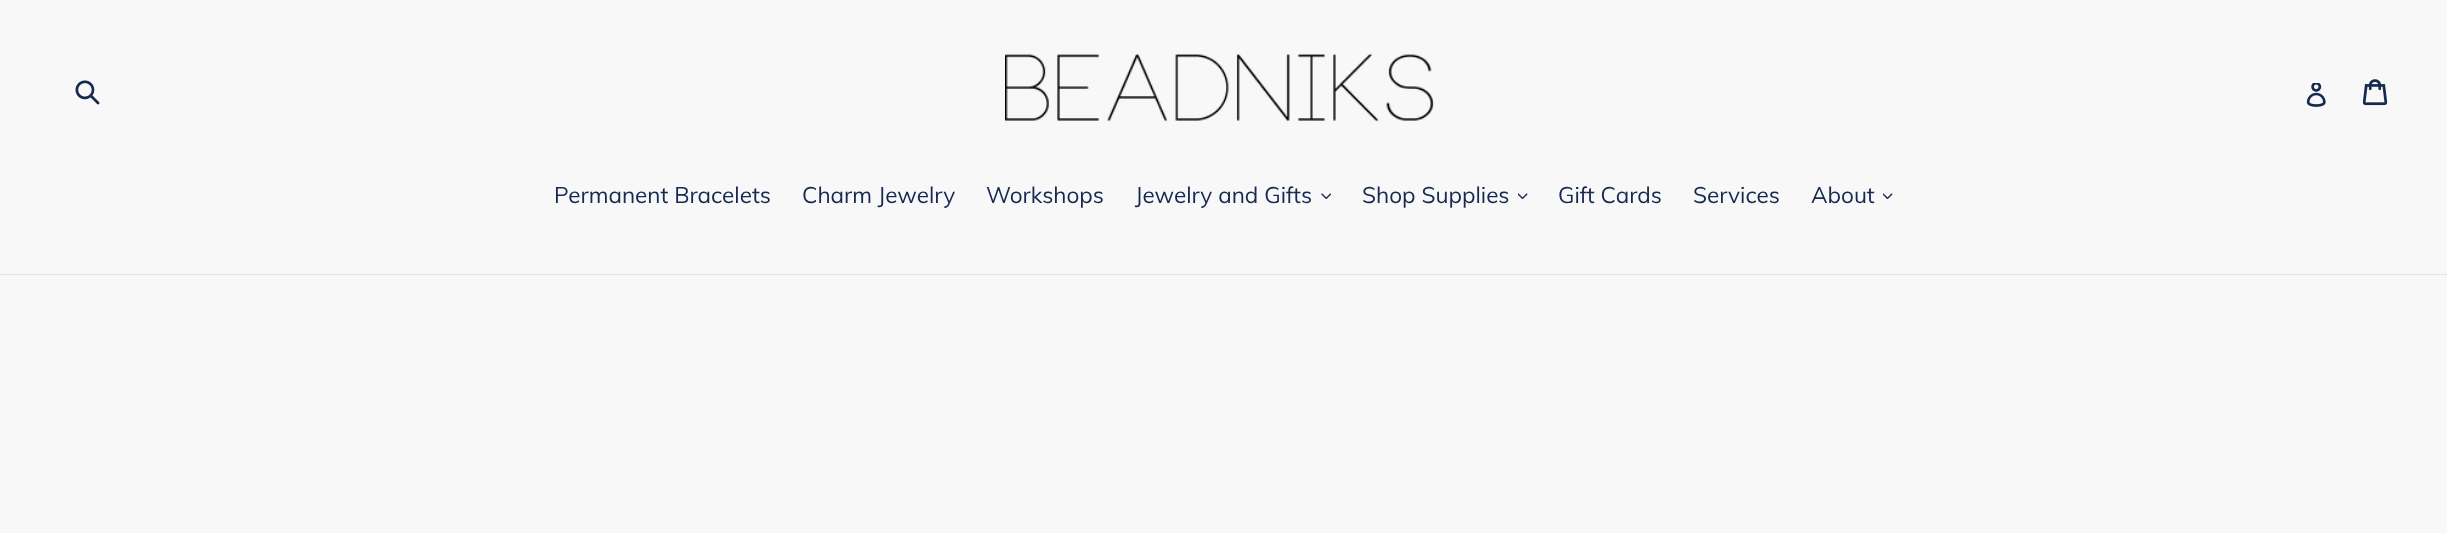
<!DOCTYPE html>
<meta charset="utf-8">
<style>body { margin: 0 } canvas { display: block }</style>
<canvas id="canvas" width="2447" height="533"></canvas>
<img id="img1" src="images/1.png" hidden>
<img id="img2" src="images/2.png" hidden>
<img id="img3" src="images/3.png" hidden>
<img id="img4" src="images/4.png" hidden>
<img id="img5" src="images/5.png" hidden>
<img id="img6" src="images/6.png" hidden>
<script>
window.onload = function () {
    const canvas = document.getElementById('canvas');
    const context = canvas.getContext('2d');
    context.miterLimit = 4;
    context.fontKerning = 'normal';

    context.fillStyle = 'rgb(248, 248, 248)';
    context.fillRect(0, 0, 2447, 533);
    context.drawImage(document.getElementById('img1'), 75, 80, 25, 25);
    context.drawImage(document.getElementById('img2'), 1005, 53, 429, 68);
    context.drawImage(document.getElementById('img3'), 2306, 83, 20, 24);
    context.drawImage(document.getElementById('img4'), 2363, 79, 25, 27);
    context.fillStyle = 'rgb(228, 228, 228)';
    context.fillRect(0, 274, 2447, 1);
    context.drawImage(document.getElementById('img5'), 1321, 193, 10, 7);
    context.drawImage(document.getElementById('img6'), 1518, 193, 10, 7);
    context.drawImage(document.getElementById('img6'), 1883, 193, 10, 7);
    context.font = '22.5px Muli';
    context.fillStyle = 'rgb(22, 41, 80)';
    context.fillText('Permanent Bracelets', 554, 203);
    context.fillText('Charm Jewelry', 802, 203);
    context.fillText('Workshops', 986, 203);
    context.fillText('Jewelry and Gifts', 1135, 203);
    context.fillText('Shop Supplies', 1362, 203);
    context.fillText('Gift Cards', 1558, 203);
    context.fillText('Services', 1693, 203);
    context.fillText('About', 1811, 203);
};
</script>
